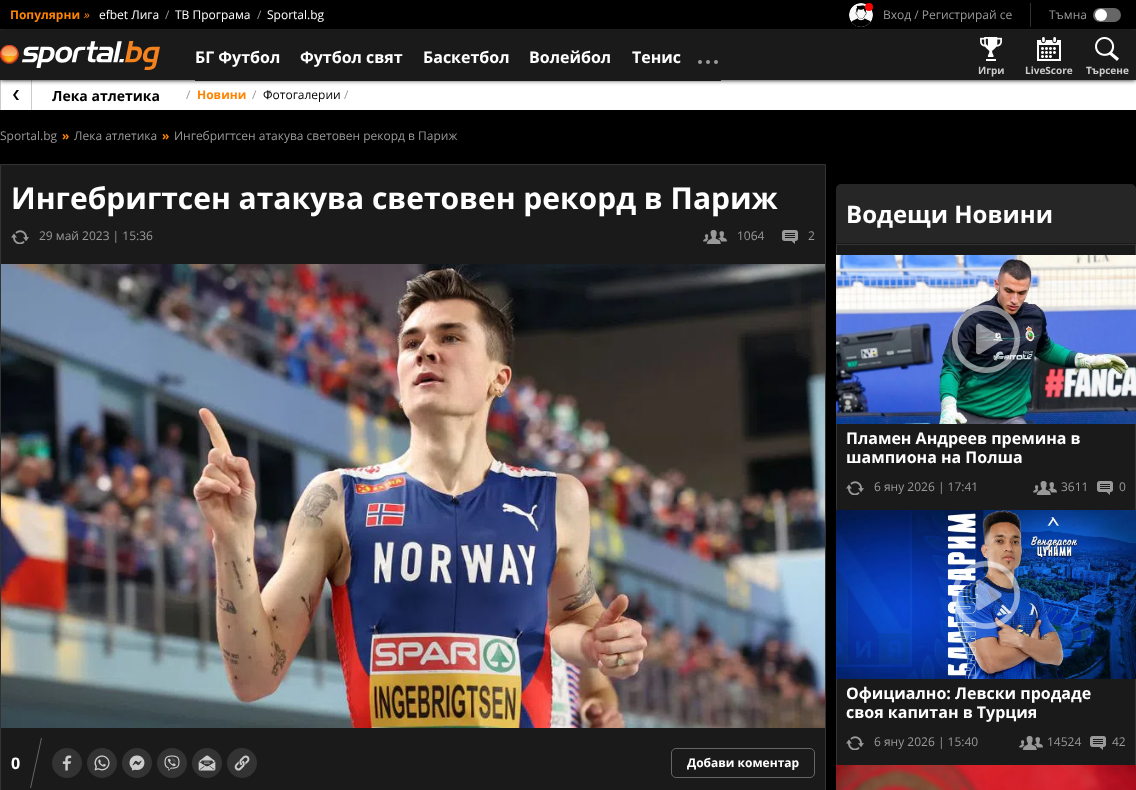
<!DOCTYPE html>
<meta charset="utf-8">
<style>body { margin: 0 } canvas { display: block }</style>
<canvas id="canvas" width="1136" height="790"></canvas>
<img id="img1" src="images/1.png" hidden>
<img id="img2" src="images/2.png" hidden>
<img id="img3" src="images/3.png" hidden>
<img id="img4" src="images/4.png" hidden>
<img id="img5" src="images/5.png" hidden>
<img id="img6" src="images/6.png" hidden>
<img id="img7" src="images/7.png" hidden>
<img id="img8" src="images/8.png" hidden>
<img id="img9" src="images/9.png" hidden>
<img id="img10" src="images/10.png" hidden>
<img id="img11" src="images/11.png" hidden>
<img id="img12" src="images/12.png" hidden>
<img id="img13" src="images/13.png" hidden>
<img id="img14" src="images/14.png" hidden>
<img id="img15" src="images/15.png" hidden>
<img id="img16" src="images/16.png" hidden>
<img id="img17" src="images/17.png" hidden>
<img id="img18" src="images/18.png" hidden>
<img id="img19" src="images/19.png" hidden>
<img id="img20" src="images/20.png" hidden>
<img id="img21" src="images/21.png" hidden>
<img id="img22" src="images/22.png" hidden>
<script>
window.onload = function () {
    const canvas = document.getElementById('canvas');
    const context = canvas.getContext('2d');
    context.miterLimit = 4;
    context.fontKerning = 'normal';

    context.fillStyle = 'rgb(0, 0, 0)';
    context.fillRect(0, 0, 1136, 790);
    context.fillStyle = 'rgb(51, 51, 51)';
    context.fillRect(0, 29, 1136, 1);
    context.drawImage(document.getElementById('img1'), 849, 3, 24, 24);
    context.fillStyle = 'rgb(255, 0, 0)';
    context.beginPath();
    context.arc(869, 7, 4, 0, 2 * Math.PI);
    context.fill();
    context.fillStyle = 'rgb(51, 51, 51)';
    context.fillRect(1030, 3, 1, 24);
    context.fillStyle = 'rgb(102, 102, 102)';
    context.beginPath();
    context.roundRect(1093, 8, 28, 14, 7);
    context.fill();
    context.fillStyle = 'rgb(255, 255, 255)';
    context.beginPath();
    context.arc(1101, 15, 6, 0, 2 * Math.PI);
    context.fill();
    context.fillRect(1, 80, 1135, 30);
    context.fillStyle = 'rgb(204, 204, 204)';
    context.fillRect(31, 80, 1, 30);
    context.fillRect(0, 80, 1, 30);
    context.fillStyle = 'rgba(0, 0, 0, 0.99)';
    context.filter = 'blur(2.5px)';
    context.beginPath();
    context.rect(0, 30, 1136, 50);
    context.fill();
    context.filter = 'none';
    context.fillStyle = 'rgb(26, 26, 26)';
    context.fillRect(0, 30, 1136, 50);
    context.drawImage(document.getElementById('img2'), 0, 41, 160, 29);
    context.fillRect(195, 80, 526, 1);
    context.drawImage(document.getElementById('img3'), 698, 60, 20, 4);
    context.drawImage(document.getElementById('img4'), 980, 37, 22, 24);
    context.drawImage(document.getElementById('img5'), 1037, 37, 24, 24);
    context.drawImage(document.getElementById('img6'), 1095, 37, 24, 24);
    context.drawImage(document.getElementById('img7'), 13, 90, 6, 10);
    context.beginPath();
    context.rect(0.5, 164.5, 825, 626);
    context.fill();
    context.strokeStyle = 'rgb(51, 51, 51)';
    context.stroke();
    context.drawImage(document.getElementById('img8'), 11, 230, 18, 14);
    context.drawImage(document.getElementById('img9'), 703, 230, 24, 14);
    context.drawImage(document.getElementById('img10'), 782, 230, 16, 14);
    context.drawImage(document.getElementById('img11'), 1, 264, 824, 464);
    context.fillStyle = 'rgb(102, 102, 102)';
    context.beginPath();
    context.moveTo(42, 738);
    context.lineTo(31, 788);
    context.lineTo(30, 788);
    context.lineTo(41, 738);
    context.closePath();
    context.fill('evenodd');
    context.drawImage(document.getElementById('img12'), 52, 748, 30, 30);
    context.drawImage(document.getElementById('img13'), 87, 748, 30, 30);
    context.drawImage(document.getElementById('img14'), 122, 748, 30, 30);
    context.drawImage(document.getElementById('img15'), 157, 748, 30, 30);
    context.drawImage(document.getElementById('img16'), 192, 748, 30, 30);
    context.drawImage(document.getElementById('img17'), 227, 748, 30, 30);
    context.beginPath();
    context.roundRect(671.5, 748.5, 143, 29, 4.5);
    context.strokeStyle = 'rgb(102, 102, 102)';
    context.stroke();
    context.fillStyle = 'rgb(38, 38, 38)';
    context.beginPath();
    context.roundRect(836, 184, 300, 60, [5, 5, 0, 0]);
    context.fill();
    context.fillStyle = 'rgb(26, 26, 26)';
    context.fillRect(836, 243, 300, 1);
    context.fillRect(837, 245, 298, 520);
    context.strokeStyle = 'rgb(51, 51, 51)';
    context.strokeRect(836.5, 244.5, 299, 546);
    context.drawImage(document.getElementById('img18'), 836, 255, 300, 169);
    context.drawImage(document.getElementById('img19'), 952, 305, 68, 68);
    context.drawImage(document.getElementById('img8'), 846, 481, 18, 14);
    context.drawImage(document.getElementById('img9'), 1033, 481, 24, 14);
    context.drawImage(document.getElementById('img10'), 1097, 481, 16, 14);
    context.drawImage(document.getElementById('img20'), 836, 510, 300, 169);
    context.drawImage(document.getElementById('img21'), 952, 561, 68, 68);
    context.drawImage(document.getElementById('img8'), 846, 736, 18, 14);
    context.drawImage(document.getElementById('img9'), 1019, 736, 24, 14);
    context.drawImage(document.getElementById('img10'), 1090, 736, 16, 14);
    context.drawImage(document.getElementById('img22'), 836, 765, 300, 25);
    context.font = 'bold 12px Open Sans';
    context.fillStyle = 'rgb(255, 132, 0)';
    context.fillText('Популярни', 10, 19);
    context.font = 'italic 12px Open Sans';
    context.fillText('»', 83, 19);
    context.font = '12px Open Sans';
    context.fillStyle = 'rgb(255, 255, 255)';
    context.fillText('efbet Лига', 99, 19);
    context.fillStyle = 'rgb(153, 153, 153)';
    context.fillText('/', 165, 19);
    context.fillStyle = 'rgb(255, 255, 255)';
    context.fillText('ТВ Програма', 175, 19);
    context.fillStyle = 'rgb(153, 153, 153)';
    context.fillText('/', 257, 19);
    context.fillStyle = 'rgb(255, 255, 255)';
    context.fillText('Sportal.bg', 267, 19);
    context.fillStyle = 'rgb(153, 153, 153)';
    context.fillText('Вход / Регистрирай се', 883, 19);
    context.fillText('Тъмна', 1049, 19);
    context.font = 'bold 16px Open Sans';
    context.fillStyle = 'rgb(255, 255, 255)';
    context.fillText('БГ Футбол', 195, 63);
    context.fillText('Футбол свят', 300, 63);
    context.fillText('Баскетбол', 423, 63);
    context.fillText('Волейбол', 529, 63);
    context.fillText('Тенис', 632, 63);
    context.font = 'bold 10px Open Sans';
    context.fillStyle = 'rgb(204, 204, 204)';
    context.fillText('Игри', 978, 74);
    context.fillText('LiveScore', 1025, 74);
    context.fillText('Търсене', 1086, 74);
    context.font = 'bold 14px Open Sans';
    context.fillStyle = 'rgb(0, 0, 0)';
    context.fillText('Лека атлетика', 52, 101);
    context.font = '12px Open Sans';
    context.fillStyle = 'rgb(153, 153, 153)';
    context.fillText('/', 186, 99);
    context.font = 'bold 12px Open Sans';
    context.fillStyle = 'rgb(255, 132, 0)';
    context.fillText('Новини', 197, 99);
    context.fillStyle = 'rgb(153, 153, 153)';
    context.fillText('/', 266, 99);
    context.font = '12px Open Sans';
    context.fillText('/', 252, 99);
    context.fillStyle = 'rgb(0, 0, 0)';
    context.fillText('Фотогалерии', 263, 99);
    context.fillStyle = 'rgb(153, 153, 153)';
    context.fillText('/', 344, 99);
    context.fillText('Sportal.bg', 0, 140);
    context.font = 'bold 12px Open Sans';
    context.fillStyle = 'rgb(255, 132, 0)';
    context.fillText('»', 62, 140);
    context.font = '12px Open Sans';
    context.fillStyle = 'rgb(153, 153, 153)';
    context.fillText('Лека атлетика', 74, 140);
    context.font = 'bold 12px Open Sans';
    context.fillStyle = 'rgb(255, 132, 0)';
    context.fillText('»', 162, 140);
    context.font = '12px Open Sans';
    context.fillStyle = 'rgb(153, 153, 153)';
    context.fillText('Ингебригтсен атакува световен рекорд в Париж', 174, 140);
    context.font = 'bold 30px Open Sans';
    context.fillStyle = 'rgb(255, 255, 255)';
    context.fillText('Ингебригтсен атакува световен рекорд в Париж', 11, 209);
    context.font = '12px Open Sans';
    context.fillStyle = 'rgb(153, 153, 153)';
    context.fillText('29 май 2023 | 15:36', 39, 240);
    context.fillText('1064', 737, 240);
    context.fillText('2', 808, 240);
    context.font = 'bold 16px Open Sans';
    context.fillStyle = 'rgb(255, 255, 255)';
    context.fillText('0', 11, 769);
    context.font = 'bold 12px Open Sans';
    context.fillText('Добави коментар', 687, 767);
    context.font = 'bold 24px Open Sans';
    context.fillText('Водещи Новини', 846, 223);
    context.font = 'bold 16px Open Sans';
    context.fillText('Пламен Андреев премина в', 846, 444);
    context.fillText('шампиона на Полша', 846, 463);
    context.font = '12px Open Sans';
    context.fillStyle = 'rgb(153, 153, 153)';
    context.fillText('6 яну 2026 | 17:41', 874, 491);
    context.fillText('3611', 1061, 491);
    context.fillText('0', 1119, 491);
    context.font = 'bold 16px Open Sans';
    context.fillStyle = 'rgb(255, 255, 255)';
    context.fillText('Официално: Левски продаде', 846, 699);
    context.fillText('своя капитан в Турция', 846, 718);
    context.font = '12px Open Sans';
    context.fillStyle = 'rgb(153, 153, 153)';
    context.fillText('6 яну 2026 | 15:40', 874, 746);
    context.fillText('14524', 1047, 746);
    context.fillText('42', 1112, 746);
};
</script>
